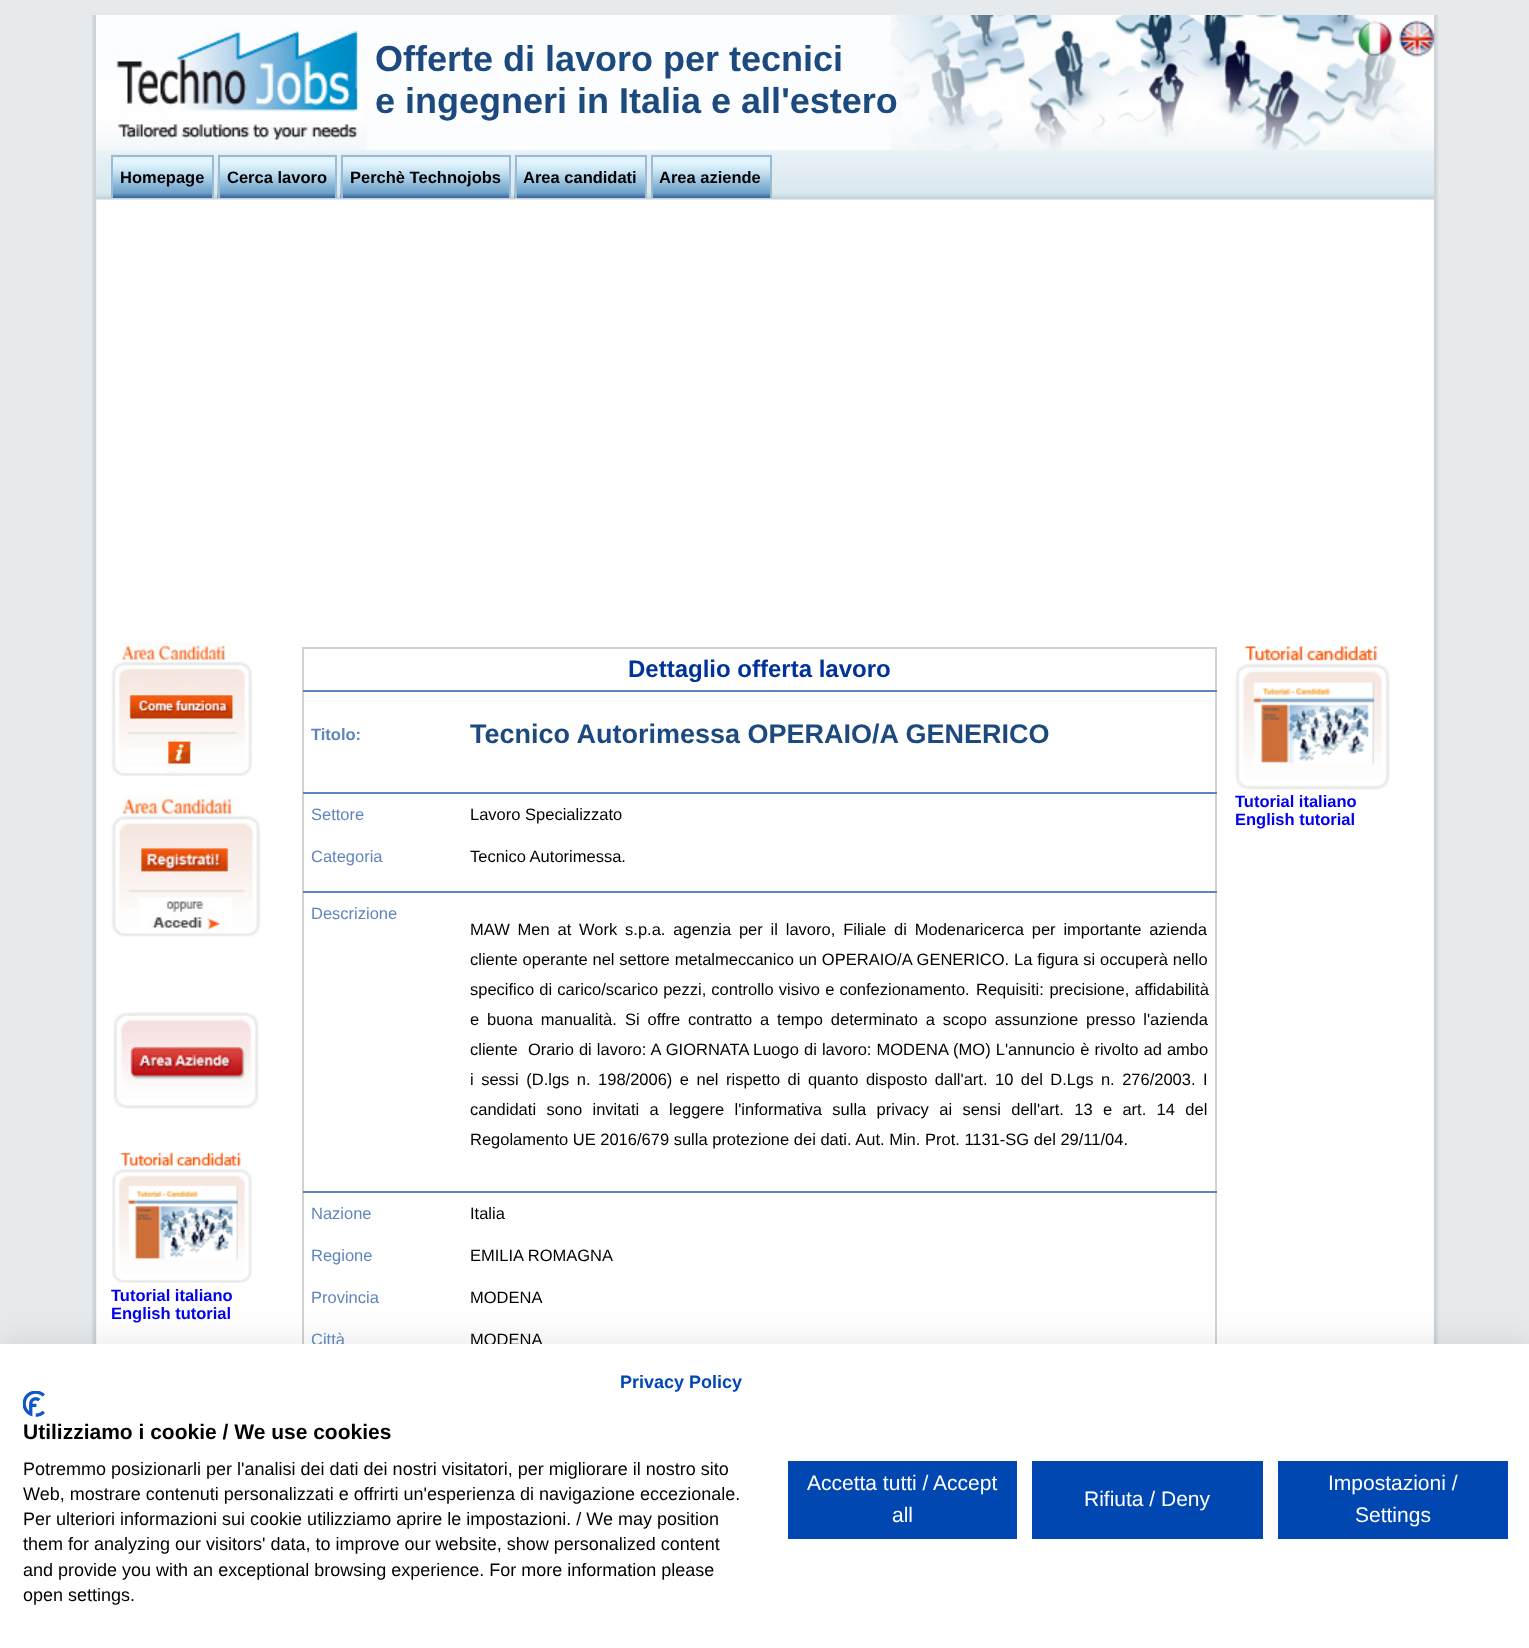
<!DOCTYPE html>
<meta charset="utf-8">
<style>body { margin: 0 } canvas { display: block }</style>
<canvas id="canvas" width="1529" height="1648"></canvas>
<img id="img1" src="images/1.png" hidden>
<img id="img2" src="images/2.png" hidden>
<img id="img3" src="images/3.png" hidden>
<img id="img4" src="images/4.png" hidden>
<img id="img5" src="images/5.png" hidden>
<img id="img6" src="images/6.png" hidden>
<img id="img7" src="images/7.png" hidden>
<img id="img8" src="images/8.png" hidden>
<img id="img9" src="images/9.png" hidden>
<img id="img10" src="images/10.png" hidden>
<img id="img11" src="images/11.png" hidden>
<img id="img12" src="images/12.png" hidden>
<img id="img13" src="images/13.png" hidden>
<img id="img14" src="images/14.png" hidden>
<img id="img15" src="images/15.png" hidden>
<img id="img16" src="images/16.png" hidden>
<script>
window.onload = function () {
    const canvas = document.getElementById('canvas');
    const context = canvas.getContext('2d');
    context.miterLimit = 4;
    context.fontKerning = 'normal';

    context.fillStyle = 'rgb(230, 234, 237)';
    context.fillRect(0, 0, 1529, 1648);
    context.drawImage(document.getElementById('img1'), 91, 15, 1348, 1329);
    context.drawImage(document.getElementById('img2'), 96, 15, 1338, 135);
    context.drawImage(document.getElementById('img3'), 96, 150, 1338, 50);
    context.drawImage(document.getElementById('img4'), 1357, 21, 36, 35);
    context.drawImage(document.getElementById('img5'), 1399, 20, 37, 37);
    context.drawImage(document.getElementById('img6'), 111, 154, 102, 44);
    context.drawImage(document.getElementById('img7'), 217, 154, 119, 44);
    context.drawImage(document.getElementById('img8'), 340, 154, 170, 44);
    context.drawImage(document.getElementById('img9'), 514, 154, 133, 44);
    context.drawImage(document.getElementById('img10'), 651, 154, 120, 44);
    context.fillStyle = 'rgb(153, 187, 212)';
    context.fillRect(111, 155, 102, 2);
    context.fillRect(212, 155, 2, 43);
    context.fillRect(111, 155, 2, 43);
    context.fillRect(218, 155, 118, 2);
    context.fillRect(335, 155, 2, 43);
    context.fillRect(218, 155, 2, 43);
    context.fillRect(341, 155, 169, 2);
    context.fillRect(509, 155, 2, 43);
    context.fillRect(341, 155, 2, 43);
    context.fillRect(515, 155, 132, 2);
    context.fillRect(645, 155, 2, 43);
    context.fillRect(515, 155, 2, 43);
    context.fillRect(651, 155, 120, 2);
    context.fillRect(770, 155, 2, 43);
    context.fillRect(651, 155, 2, 43);
    context.strokeStyle = 'rgb(210, 210, 210)';
    context.lineWidth = 2;
    context.strokeRect(303, 648, 913, 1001);
    context.fillStyle = 'rgb(95, 133, 189)';
    context.fillRect(303, 690, 914, 2);
    context.fillRect(303, 792, 914, 2);
    context.fillRect(303, 891, 914, 2);
    context.fillRect(303, 1191, 914, 2);
    context.drawImage(document.getElementById('img11'), 1235, 646, 155, 144);
    context.drawImage(document.getElementById('img12'), 111, 642, 142, 134);
    context.drawImage(document.getElementById('img13'), 111, 795, 150, 142);
    context.drawImage(document.getElementById('img14'), 113, 1012, 146, 97);
    context.drawImage(document.getElementById('img15'), 112, 1152, 140, 131);
    context.fillStyle = 'rgba(0, 0, 0, 0.1)';
    context.filter = 'blur(18px)';
    context.beginPath();
    context.rect(0, 1344, 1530, 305);
    context.fill();
    context.filter = 'none';
    context.font = 'bold 36px Liberation Sans';
    context.fillStyle = 'rgb(28, 74, 126)';
    context.fillText('Offerte di lavoro per tecnici', 375, 71);
    context.fillText('e ingegneri in Italia e all\'estero', 375, 113);
    context.font = 'bold 16.5px Liberation Sans';
    context.fillStyle = 'rgb(0, 0, 0)';
    context.fillText('Homepage', 120, 183);
    context.fillText('Cerca lavoro', 227, 183);
    context.fillText('Perchè Technojobs', 350, 183);
    context.fillText('Area candidati', 523, 183);
    context.fillText('Area aziende', 659, 183);
    context.font = 'bold 24px Liberation Sans';
    context.fillStyle = 'rgb(0, 51, 153)';
    context.fillText('Dettaglio offerta lavoro', 628, 677);
    context.font = 'bold 16.5px Liberation Sans';
    context.fillStyle = 'rgb(95, 133, 189)';
    context.fillText('Titolo:', 311, 740);
    context.font = 'bold 27px Liberation Sans';
    context.fillStyle = 'rgb(28, 74, 126)';
    context.fillText('Tecnico Autorimessa OPERAIO/A GENERICO', 470, 743);
    context.font = '16.5px Liberation Sans';
    context.fillStyle = 'rgb(95, 133, 189)';
    context.fillText('Settore', 311, 820);
    context.fillStyle = 'rgb(0, 0, 0)';
    context.fillText('Lavoro Specializzato', 470, 820);
    context.fillStyle = 'rgb(95, 133, 189)';
    context.fillText('Categoria', 311, 862);
    context.fillStyle = 'rgb(0, 0, 0)';
    context.fillText('Tecnico Autorimessa.', 470, 862);
    context.fillStyle = 'rgb(95, 133, 189)';
    context.fillText('Descrizione', 311, 919);
    context.wordSpacing = '3.25px';
    context.fillStyle = 'rgb(0, 0, 0)';
    context.fillText('MAW Men at Work s.p.a. agenzia per il lavoro, Filiale di Modenaricerca per importante azienda', 470, 935);
    context.wordSpacing = '0.25px';
    context.fillText('cliente operante nel settore metalmeccanico un OPERAIO/A GENERICO. La figura si occuperà nello', 470, 965);
    context.wordSpacing = '0.5px';
    context.fillText('specifico di carico/scarico pezzi, controllo visivo e confezionamento.', 470, 995);
    context.wordSpacing = '1px';
    context.fillText('Requisiti: precisione, affidabilità', 976, 995);
    context.wordSpacing = '3.25px';
    context.fillText('e buona manualità.', 470, 1025);
    context.fillText('Si offre contratto a tempo determinato a scopo assunzione presso l\'azienda', 625, 1025);
    context.wordSpacing = '0px';
    context.fillText('cliente', 470, 1055);
    context.wordSpacing = '0.5px';
    context.fillText('Orario di lavoro: A GIORNATA', 528, 1055);
    context.fillText('Luogo di lavoro: MODENA (MO) L\'annuncio è rivolto ad ambo', 753, 1055);
    context.wordSpacing = '2.9px';
    context.fillText('i sessi (D.lgs n. 198/2006) e nel rispetto di quanto disposto dall\'art. 10 del D.Lgs n. 276/2003. I', 470, 1085);
    context.wordSpacing = '5.75px';
    context.fillText('candidati sono invitati a leggere l\'informativa sulla privacy ai sensi dell\'art. 13 e art. 14 del', 470, 1115);
    context.wordSpacing = '0px';
    context.fillText('Regolamento UE 2016/679 sulla protezione dei dati. Aut. Min. Prot. 1131-SG del 29/11/04.', 470, 1145);
    context.fillStyle = 'rgb(95, 133, 189)';
    context.fillText('Nazione', 311, 1219);
    context.fillStyle = 'rgb(0, 0, 0)';
    context.fillText('Italia', 470, 1219);
    context.fillStyle = 'rgb(95, 133, 189)';
    context.fillText('Regione', 311, 1261);
    context.fillStyle = 'rgb(0, 0, 0)';
    context.fillText('EMILIA ROMAGNA', 470, 1261);
    context.fillStyle = 'rgb(95, 133, 189)';
    context.fillText('Provincia', 311, 1303);
    context.fillStyle = 'rgb(0, 0, 0)';
    context.fillText('MODENA', 470, 1303);
    context.fillStyle = 'rgb(95, 133, 189)';
    context.fillText('Città', 311, 1345);
    context.fillStyle = 'rgb(0, 0, 0)';
    context.fillText('MODENA', 470, 1345);
    context.font = 'bold 16.5px Liberation Sans';
    context.fillStyle = 'rgb(0, 0, 238)';
    context.fillText('Tutorial italiano', 1235, 807);
    context.fillText('English tutorial', 1235, 825);
    context.fillText('Tutorial italiano', 111, 1301);
    context.fillText('English tutorial', 111, 1319);
    context.fillStyle = 'rgb(255, 255, 255)';
    context.fillRect(0, 1344, 1529, 304);
    context.font = 'bold 18px Liberation Sans';
    context.fillStyle = 'rgb(0, 71, 178)';
    context.fillText('Privacy Policy', 620, 1388);
    context.drawImage(document.getElementById('img16'), 23, 1391, 22, 26);
    context.font = 'bold 21px Liberation Sans';
    context.fillStyle = 'rgb(0, 0, 0)';
    context.fillText('Utilizziamo i cookie / We use cookies', 23, 1439);
    context.font = '18px Liberation Sans';
    context.fillText('Potremmo posizionarli per l\'analisi dei dati dei nostri visitatori, per migliorare il nostro sito', 23, 1475);
    context.fillText('Web, mostrare contenuti personalizzati e offrirti un\'esperienza di navigazione eccezionale.', 23, 1500);
    context.fillText('Per ulteriori informazioni sui cookie utilizziamo aprire le impostazioni. / We may position', 23, 1525);
    context.fillText('them for analyzing our visitors\' data, to improve our website, show personalized content', 23, 1550);
    context.fillText('and provide you with an exceptional browsing experience. For more information please', 23, 1576);
    context.fillText('open settings.', 23, 1601);
    context.fillStyle = 'rgb(0, 71, 178)';
    context.fillRect(788, 1461, 229, 78);
    context.font = '21px Liberation Sans';
    context.fillStyle = 'rgb(255, 255, 255)';
    context.fillText('Accetta tutti / Accept', 807, 1490);
    context.fillText('all', 892, 1522);
    context.fillStyle = 'rgb(0, 71, 178)';
    context.fillRect(1032, 1461, 231, 78);
    context.fillStyle = 'rgb(255, 255, 255)';
    context.fillText('Rifiuta / Deny', 1084, 1506);
    context.fillStyle = 'rgb(0, 71, 178)';
    context.fillRect(1278, 1461, 230, 78);
    context.fillStyle = 'rgb(255, 255, 255)';
    context.fillText('Impostazioni /', 1328, 1490);
    context.fillText('Settings', 1355, 1522);
};
</script>
